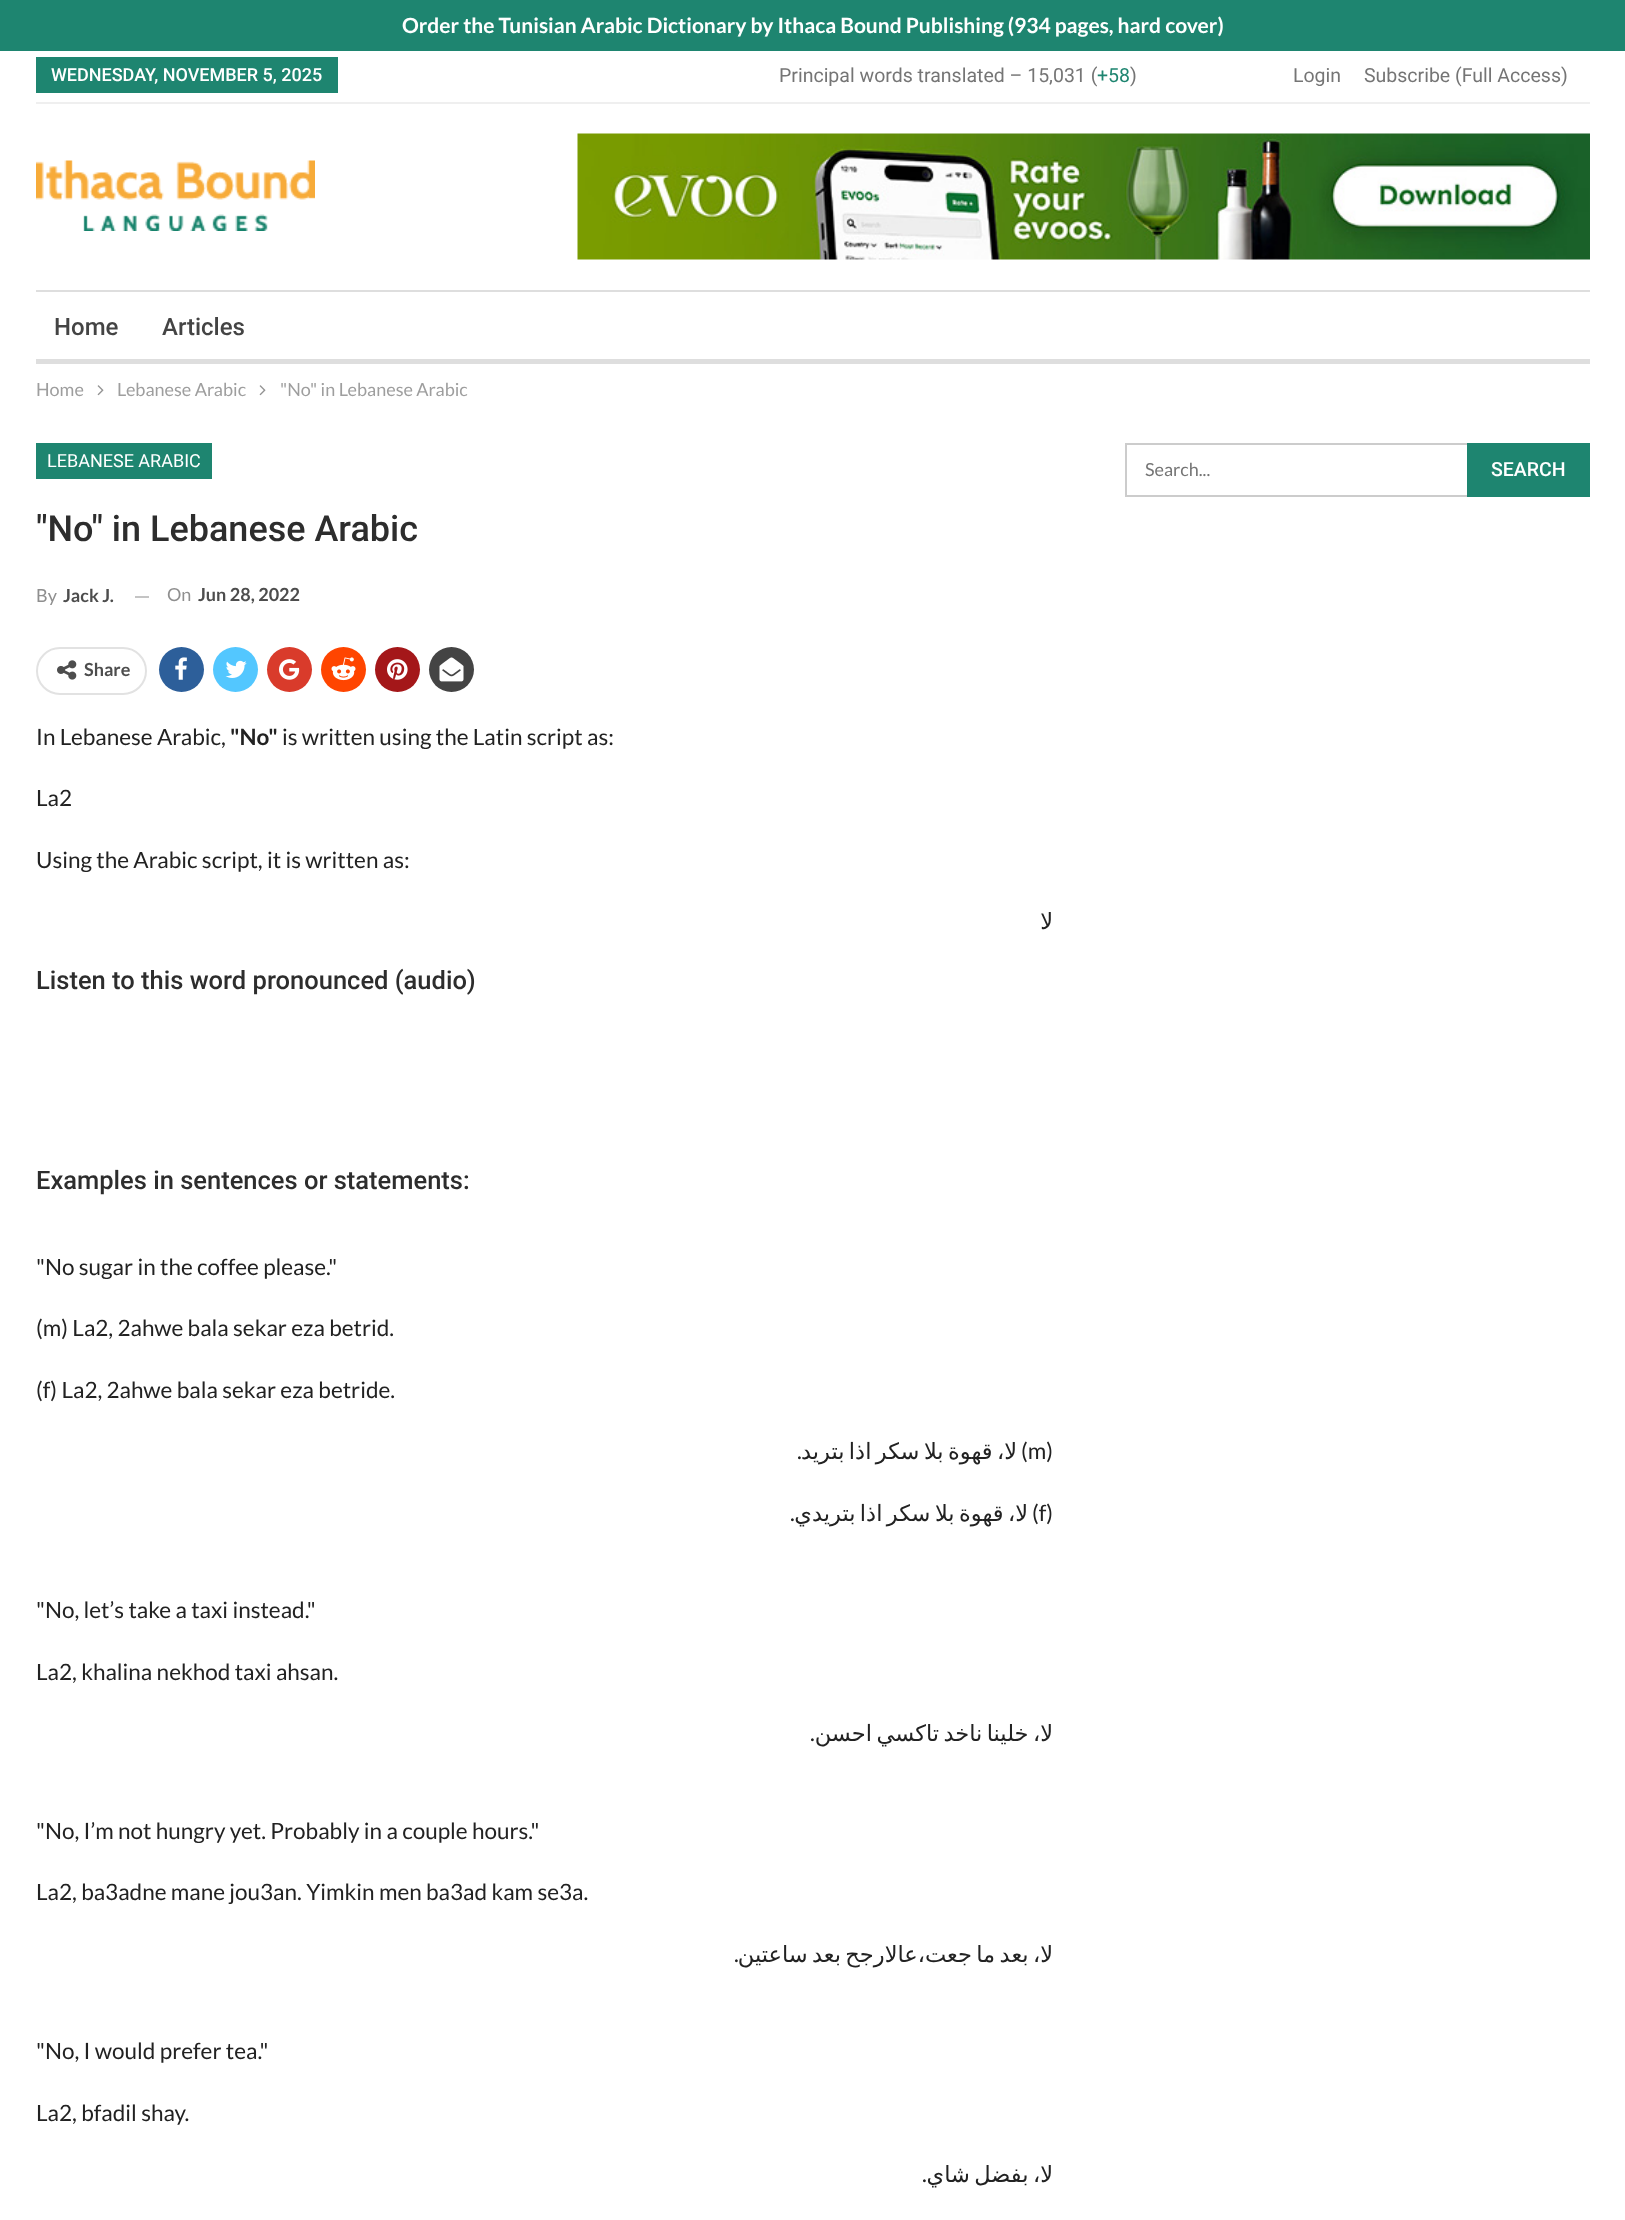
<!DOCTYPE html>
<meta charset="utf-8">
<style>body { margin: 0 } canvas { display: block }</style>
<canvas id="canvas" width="1625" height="2220"></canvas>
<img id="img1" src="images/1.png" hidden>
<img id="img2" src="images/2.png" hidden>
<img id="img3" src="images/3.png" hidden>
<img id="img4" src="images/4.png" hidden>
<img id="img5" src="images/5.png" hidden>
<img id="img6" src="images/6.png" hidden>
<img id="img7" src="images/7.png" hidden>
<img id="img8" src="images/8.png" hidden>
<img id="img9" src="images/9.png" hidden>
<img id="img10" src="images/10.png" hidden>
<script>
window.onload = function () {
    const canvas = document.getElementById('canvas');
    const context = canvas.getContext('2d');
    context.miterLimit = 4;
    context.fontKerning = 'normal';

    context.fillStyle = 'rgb(255, 255, 255)';
    context.fillRect(0, 0, 1625, 2220);
    context.fillStyle = 'rgb(30, 133, 112)';
    context.fillRect(0, 0, 1625, 51);
    context.fillStyle = 'rgb(239, 239, 239)';
    context.fillRect(36, 102, 1554, 2);
    context.fillStyle = 'rgb(30, 133, 112)';
    context.fillRect(36, 57, 302, 36);
    context.drawImage(document.getElementById('img1'), 36, 160, 279, 71);
    context.drawImage(document.getElementById('img2'), 577, 133, 1013, 127);
    context.fillStyle = 'rgb(222, 222, 222)';
    context.fillRect(36, 290, 1554, 2);
    context.fillRect(36, 359, 1554, 5);
    context.drawImage(document.getElementById('img3'), 97, 385, 7, 11);
    context.drawImage(document.getElementById('img3'), 259, 385, 7, 11);
    context.fillStyle = 'rgb(30, 133, 112)';
    context.fillRect(36, 443, 176, 36);
    context.fillStyle = 'rgb(196, 196, 196)';
    context.fillRect(135, 596, 14, 2);
    context.beginPath();
    context.roundRect(37, 648, 109, 46, 23);
    context.strokeStyle = 'rgb(226, 226, 226)';
    context.lineWidth = 2;
    context.stroke();
    context.drawImage(document.getElementById('img4'), 57, 660, 20, 20);
    context.fillStyle = 'rgb(45, 95, 154)';
    context.beginPath();
    context.arc(181.5, 669.5, 22.5, 0, 2 * Math.PI);
    context.fill();
    context.drawImage(document.getElementById('img5'), 175, 657, 12, 23);
    context.fillStyle = 'rgb(83, 199, 255)';
    context.beginPath();
    context.arc(235.5, 669.5, 22.5, 0, 2 * Math.PI);
    context.fill();
    context.drawImage(document.getElementById('img6'), 225, 660, 22, 18);
    context.fillStyle = 'rgb(217, 59, 43)';
    context.beginPath();
    context.arc(289.5, 669.5, 22.5, 0, 2 * Math.PI);
    context.fill();
    context.drawImage(document.getElementById('img7'), 279, 659, 21, 21);
    context.fillStyle = 'rgb(255, 69, 0)';
    context.beginPath();
    context.arc(343.5, 669.5, 22.5, 0, 2 * Math.PI);
    context.fill();
    context.drawImage(document.getElementById('img8'), 331, 657, 25, 24);
    context.fillStyle = 'rgb(164, 23, 25)';
    context.beginPath();
    context.arc(397.5, 669.5, 22.5, 0, 2 * Math.PI);
    context.fill();
    context.drawImage(document.getElementById('img9'), 387, 659, 21, 21);
    context.fillStyle = 'rgb(68, 68, 68)';
    context.beginPath();
    context.arc(451.5, 669.5, 22.5, 0, 2 * Math.PI);
    context.fill();
    context.drawImage(document.getElementById('img10'), 439, 657, 25, 25);
    context.strokeStyle = 'rgb(204, 204, 204)';
    context.strokeRect(1126, 444, 463, 52);
    context.fillStyle = 'rgb(30, 133, 112)';
    context.fillRect(1467, 443, 123, 54);
    context.font = 'bold 21px Lato';
    context.fillStyle = 'rgb(255, 255, 255)';
    context.fillText('Order the Tunisian Arabic Dictionary by Ithaca Bound Publishing (934 pages, hard cover)', 402, 33);
    context.font = '500 18px Roboto';
    context.fillText('WEDNESDAY, NOVEMBER 5, 2025', 51, 81);
    context.font = '19.5px Roboto';
    context.fillStyle = 'rgb(117, 117, 117)';
    context.fillText('Principal words translated – 15,031 (', 779, 82);
    context.fillStyle = 'rgb(30, 133, 112)';
    context.fillText('+58', 1097, 82);
    context.fillStyle = 'rgb(117, 117, 117)';
    context.fillText(')', 1130, 82);
    context.fillText('Login', 1293, 82);
    context.fillText('Subscribe (Full Access)', 1364, 82);
    context.font = '500 24px Roboto';
    context.fillStyle = 'rgb(68, 68, 68)';
    context.fillText('Home', 54, 335);
    context.fillText('Articles', 162, 335);
    context.font = '18px Lato';
    context.fillStyle = 'rgb(158, 158, 158)';
    context.fillText('Home', 36, 396);
    context.fillText('Lebanese Arabic', 117, 396);
    context.fillText('"No" in Lebanese Arabic', 280, 396);
    context.font = '18px Roboto';
    context.fillStyle = 'rgb(255, 255, 255)';
    context.fillText('LEBANESE ARABIC', 47, 467);
    context.font = '500 36px Roboto';
    context.fillStyle = 'rgb(45, 45, 45)';
    context.fillText('"No" in Lebanese Arabic', 36, 541);
    context.font = '18px Lato';
    context.fillStyle = 'rgb(143, 143, 143)';
    context.fillText('By', 36, 602);
    context.font = 'bold 18px Lato';
    context.fillStyle = 'rgb(77, 77, 77)';
    context.fillText('Jack J.', 63, 602);
    context.font = '18px Lato';
    context.fillStyle = 'rgb(143, 143, 143)';
    context.fillText('On', 167, 601);
    context.font = 'bold 18px Lato';
    context.fillStyle = 'rgb(77, 77, 77)';
    context.fillText('Jun 28, 2022', 198, 601);
    context.fillText('Share', 84, 676);
    context.font = '22.5px Lato';
    context.fillStyle = 'rgb(34, 34, 34)';
    context.fillText('In Lebanese Arabic,', 36, 745);
    context.font = 'bold 22.5px Lato';
    context.fillText('"No"', 230, 745);
    context.font = '22.5px Lato';
    context.fillText('is written using the Latin script as:', 282, 745);
    context.fillText('La2', 36, 806);
    context.fillText('Using the Arabic script, it is written as:', 36, 868);
    context.direction = 'rtl';
    context.font = '22.5px DejaVu Sans';
    context.fillText('لا', 1053, 929);
    context.direction = 'ltr';
    context.font = '500 25.5px Roboto';
    context.fillStyle = 'rgb(45, 45, 45)';
    context.fillText('Listen to this word pronounced (audio)', 36, 989);
    context.fillText('Examples in sentences or statements:', 36, 1189);
    context.font = '22.5px Lato';
    context.fillStyle = 'rgb(34, 34, 34)';
    context.fillText('"No sugar in the coffee please."', 36, 1275);
    context.fillText('(m) La2, 2ahwe bala sekar eza betrid.', 36, 1336);
    context.fillText('(f) La2, 2ahwe bala sekar eza betride.', 36, 1398);
    context.fillText('.', 797, 1459);
    context.wordSpacing = '-2.75px';
    context.direction = 'rtl';
    context.font = '22.5px DejaVu Sans';
    context.fillText('لا، قهوة بلا سكر اذا بتريد', 1017, 1459);
    context.wordSpacing = '0px';
    context.direction = 'ltr';
    context.font = '22.5px Lato';
    context.fillText('(m)', 1021, 1459);
    context.fillText('.', 790, 1521);
    context.wordSpacing = '-2.75px';
    context.direction = 'rtl';
    context.font = '22.5px DejaVu Sans';
    context.fillText('لا، قهوة بلا سكر اذا بتريدي', 1028, 1521);
    context.wordSpacing = '0px';
    context.direction = 'ltr';
    context.font = '22.5px Lato';
    context.fillText('(f)', 1032, 1521);
    context.fillText('"No, let’s take a taxi instead."', 36, 1618);
    context.fillText('La2, khalina nekhod taxi ahsan.', 36, 1680);
    context.fillText('.', 810, 1741);
    context.wordSpacing = '-2.75px';
    context.direction = 'rtl';
    context.font = '22.5px DejaVu Sans';
    context.fillText('لا، خلينا ناخد تاكسي احسن', 1053, 1741);
    context.wordSpacing = '0px';
    context.direction = 'ltr';
    context.font = '22.5px Lato';
    context.fillText('"No, I’m not hungry yet. Probably in a couple hours."', 36, 1839);
    context.fillText('La2, ba3adne mane jou3an. Yimkin men ba3ad kam se3a.', 36, 1900);
    context.fillText('.', 734, 1962);
    context.wordSpacing = '-2.75px';
    context.direction = 'rtl';
    context.font = '22.5px DejaVu Sans';
    context.fillText('لا، بعد ما جعت،عالارجح بعد ساعتين', 1053, 1962);
    context.wordSpacing = '0px';
    context.direction = 'ltr';
    context.font = '22.5px Lato';
    context.fillText('"No, I would prefer tea."', 36, 2059);
    context.fillText('La2, bfadil shay.', 36, 2121);
    context.fillText('.', 922, 2182);
    context.wordSpacing = '-2.75px';
    context.direction = 'rtl';
    context.font = '22.5px DejaVu Sans';
    context.fillText('لا، بفضل شاي', 1053, 2182);
    context.wordSpacing = '0px';
    context.direction = 'ltr';
    context.font = '18px Lato';
    context.fillStyle = 'rgb(117, 117, 117)';
    context.fillText('Search...', 1145, 476);
    context.font = '500 19.5px Roboto';
    context.fillStyle = 'rgb(255, 255, 255)';
    context.fillText('SEARCH', 1491, 476);
};
</script>
